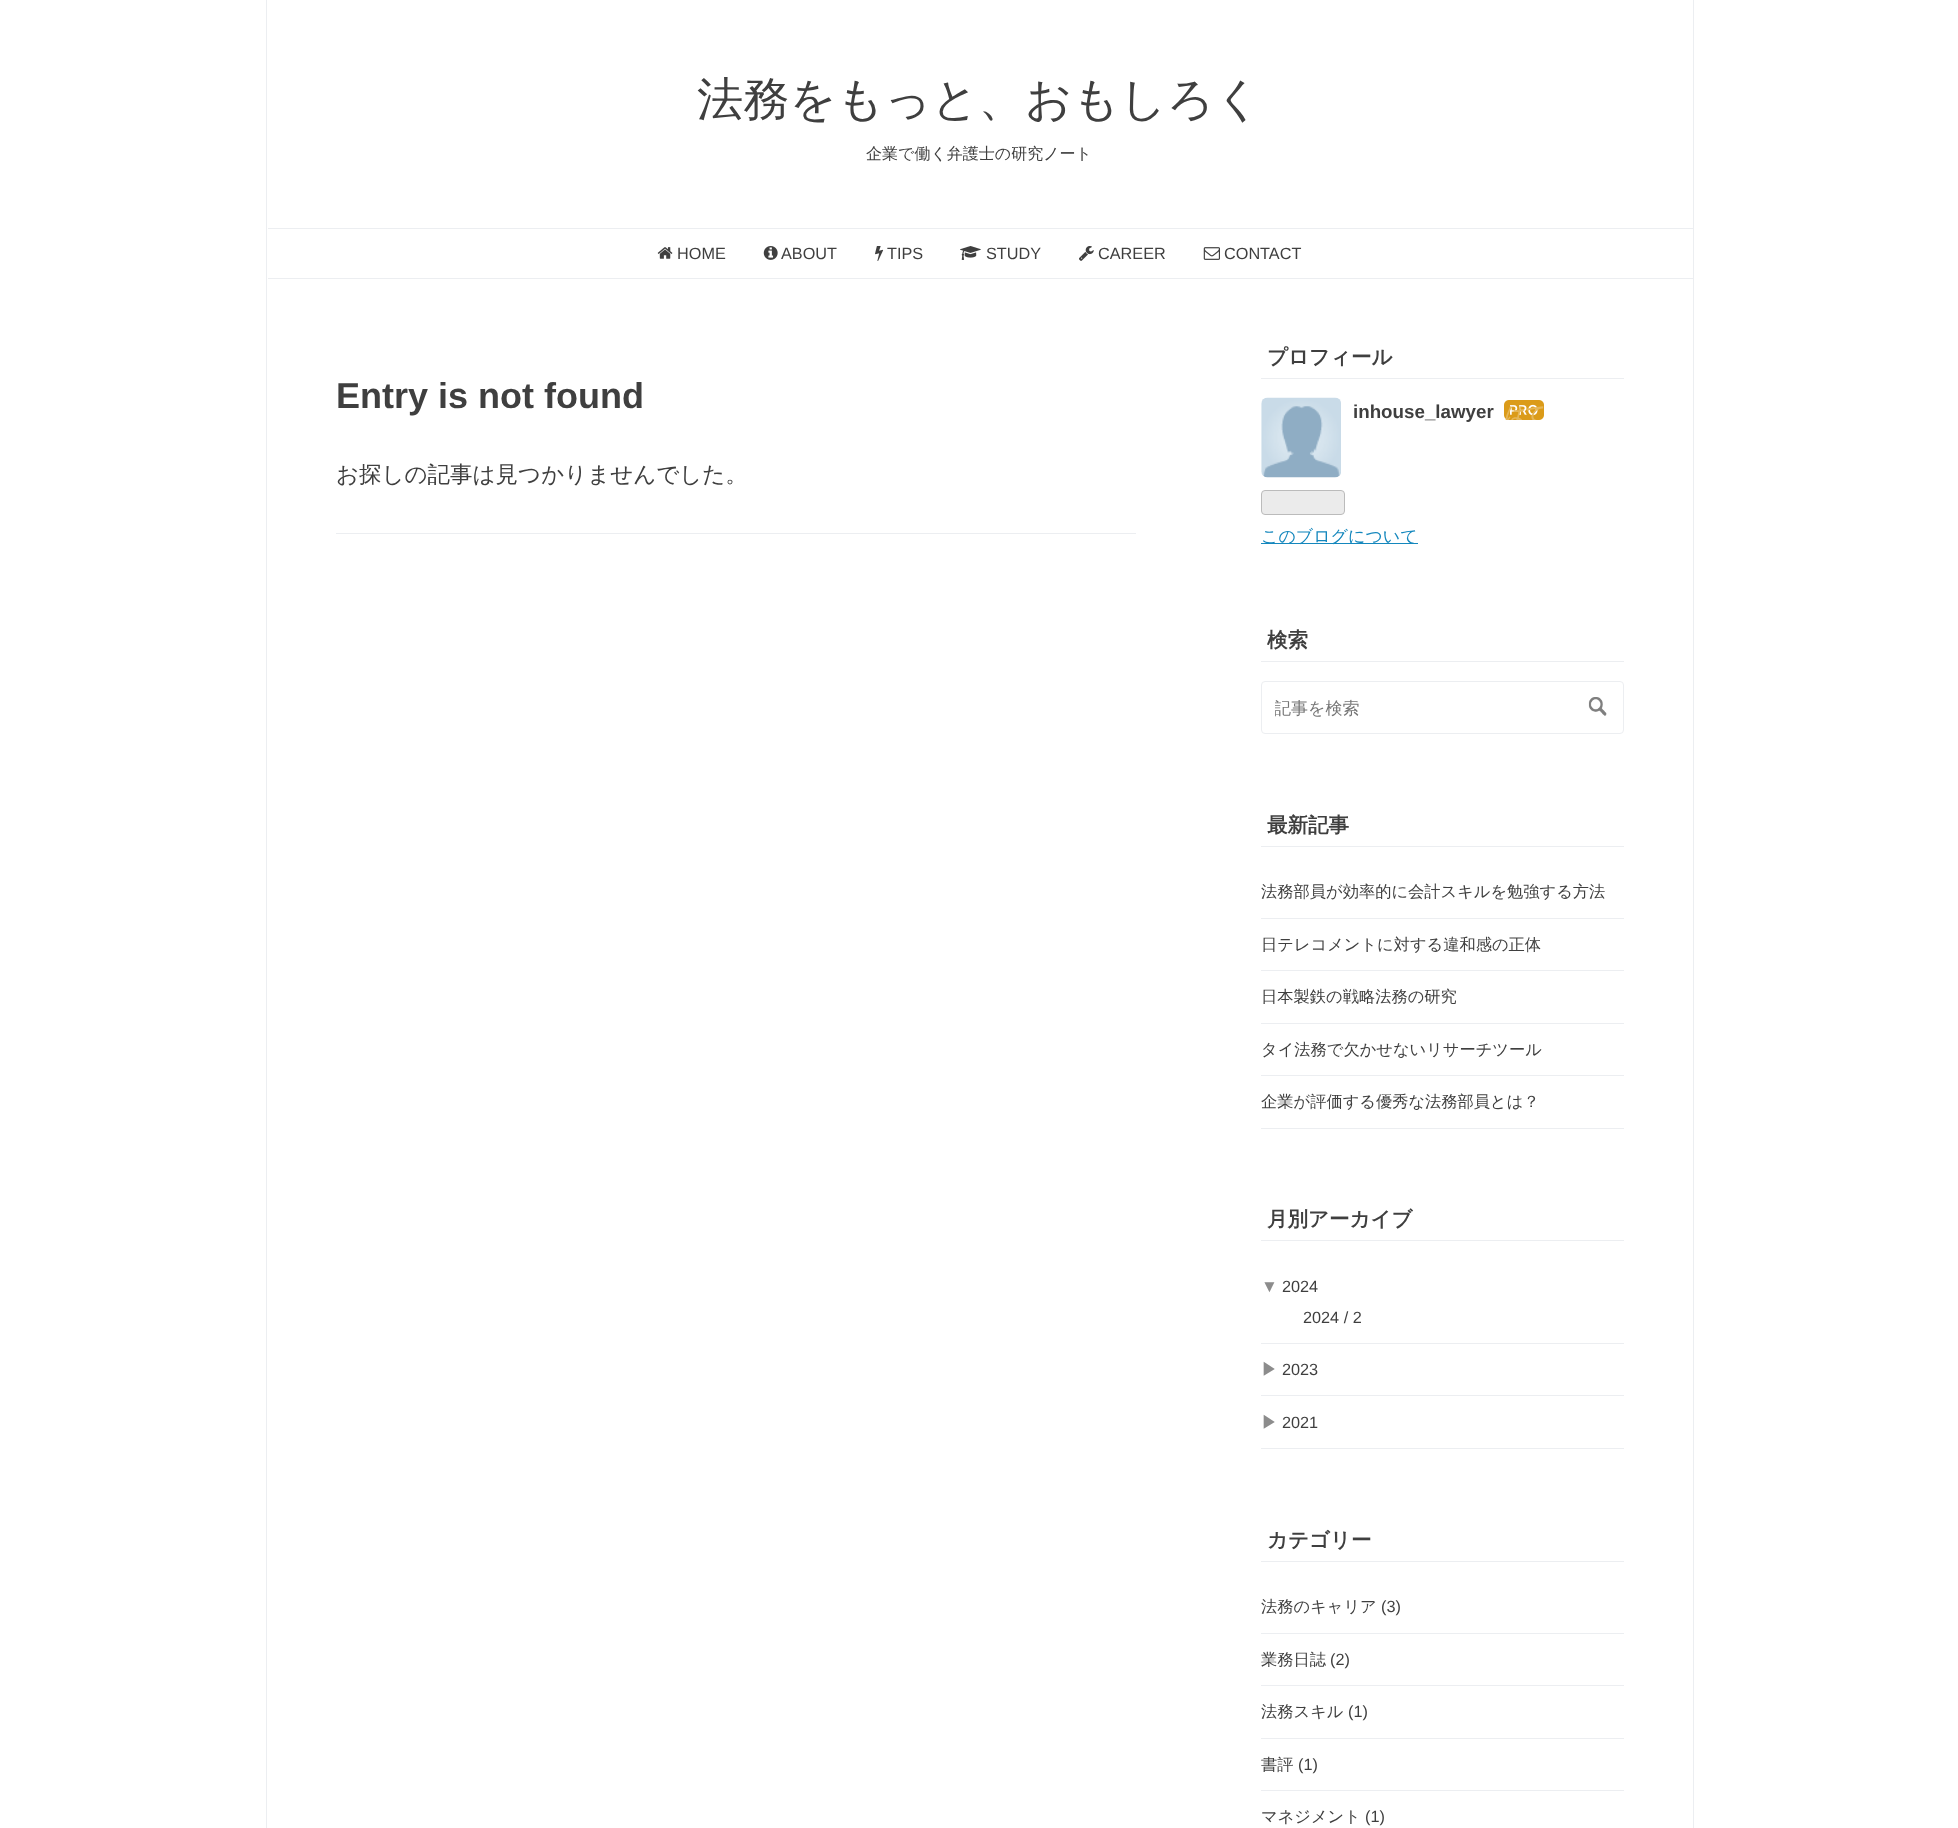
<!DOCTYPE html>
<meta charset="utf-8">
<style>body { margin: 0 } canvas { display: block }</style>
<canvas id="canvas" width="1958" height="1828"></canvas>
<img id="img1" src="images/1.png" hidden>
<img id="img2" src="images/2.png" hidden>
<img id="img3" src="images/3.png" hidden>
<img id="img4" src="images/4.png" hidden>
<img id="img5" src="images/5.png" hidden>
<img id="img6" src="images/6.png" hidden>
<img id="img7" src="images/7.png" hidden>
<img id="img8" src="images/8.png" hidden>
<img id="img9" src="images/9.png" hidden>
<script>
window.onload = function () {
    const canvas = document.getElementById('canvas');
    const context = canvas.getContext('2d');
    context.miterLimit = 4;
    context.fontKerning = 'normal';

    context.fillStyle = 'rgb(255, 255, 255)';
    context.fillRect(0, 0, 1958, 1828);
    context.fillStyle = 'rgb(236, 238, 241)';
    context.fillRect(1693, 0, 1, 1828);
    context.fillRect(266, 0, 1, 1828);
    context.fillRect(268, 228, 1425, 1);
    context.fillRect(268, 278, 1425, 1);
    context.drawImage(document.getElementById('img1'), 657, 247, 16, 12);
    context.drawImage(document.getElementById('img2'), 763, 246, 15, 14);
    context.drawImage(document.getElementById('img3'), 875, 246, 9, 15);
    context.drawImage(document.getElementById('img4'), 960, 246, 21, 14);
    context.drawImage(document.getElementById('img5'), 1079, 246, 15, 15);
    context.drawImage(document.getElementById('img6'), 1203, 247, 17, 13);
    context.fillRect(336, 533, 800, 1);
    context.fillRect(1261, 378, 363, 1);
    context.drawImage(document.getElementById('img7'), 1261, 397, 80, 81);
    context.drawImage(document.getElementById('img8'), 1504, 400, 40, 20);
    context.fillStyle = 'rgb(235, 235, 235)';
    context.beginPath();
    context.roundRect(1261.5, 490.5, 83, 24, 3.5);
    context.fill();
    context.strokeStyle = 'rgb(187, 187, 187)';
    context.stroke();
    context.fillStyle = 'rgb(20, 135, 189)';
    context.fillRect(1261, 543, 157, 1);
    context.fillStyle = 'rgb(236, 238, 241)';
    context.fillRect(1261, 661, 363, 1);
    context.beginPath();
    context.roundRect(1261.5, 681.5, 362, 52, 3.5);
    context.strokeStyle = 'rgb(236, 238, 241)';
    context.stroke();
    context.drawImage(document.getElementById('img9'), 1588, 697, 19, 19);
    context.fillRect(1261, 846, 363, 1);
    context.fillRect(1261, 918, 363, 1);
    context.fillRect(1261, 970, 363, 1);
    context.fillRect(1261, 1023, 363, 1);
    context.fillRect(1261, 1075, 363, 1);
    context.fillRect(1261, 1128, 363, 1);
    context.fillRect(1261, 1240, 363, 1);
    context.fillRect(1261, 1343, 363, 1);
    context.fillRect(1261, 1395, 363, 1);
    context.fillRect(1261, 1448, 363, 1);
    context.fillRect(1261, 1561, 363, 1);
    context.fillRect(1261, 1633, 363, 1);
    context.fillRect(1261, 1685, 363, 1);
    context.fillRect(1261, 1738, 363, 1);
    context.fillRect(1261, 1790, 363, 1);
    context.font = '500 46.25px WenQuanYi Zen Hei';
    context.fillStyle = 'rgb(63, 63, 63)';
    context.fillText('法務をもっと、おもしろく', 697, 115);
    context.font = '500 16px WenQuanYi Zen Hei';
    context.fillText('企業で働く弁護士の研究ノート', 866, 159);
    context.font = '16.25px Liberation Sans';
    context.fillText('HOME', 677, 259);
    context.fillText('ABOUT', 781, 259);
    context.fillText('TIPS', 887, 259);
    context.fillText('STUDY', 986, 259);
    context.fillText('CAREER', 1098, 259);
    context.fillText('CONTACT', 1224, 259);
    context.font = 'bold 36px Liberation Sans';
    context.fillText('Entry is not found', 336, 408);
    context.font = '500 22.5px WenQuanYi Zen Hei';
    context.fillText('お探しの記事は見つかりませんでした。', 336, 482);
    context.font = 'bold 20.5px WenQuanYi Zen Hei';
    context.fillText('プロフィール', 1267, 364);
    context.font = 'bold 18.75px Liberation Sans';
    context.fillText('inhouse_lawyer', 1353, 418);
    context.save();
    context.beginPath();
    context.rect(1504, 400, 40, 20);
    context.clip();
    context.font = 'italic bold 18.75px WenQuanYi Zen Hei';
    context.fillStyle = 'rgb(229, 182, 88)';
    context.fillText('はて', 1504, 420);
    context.restore();
    context.font = '500 17px WenQuanYi Zen Hei';
    context.fillStyle = 'rgb(20, 135, 189)';
    context.fillText('このブログについて', 1261, 542);
    context.font = 'bold 20.5px WenQuanYi Zen Hei';
    context.fillStyle = 'rgb(63, 63, 63)';
    context.fillText('検索', 1267, 647);
    context.save();
    context.beginPath();
    context.rect(1275, 698, 324, 22);
    context.clip();
    context.font = '500 17px WenQuanYi Zen Hei';
    context.fillStyle = 'rgb(117, 117, 117)';
    context.fillText('記事を検索', 1274, 714);
    context.restore();
    context.fillText('最新記事', 1267, 832);
    context.font = '500 16.25px WenQuanYi Zen Hei';
    context.fillText('法務部員が効率的に会計スキルを勉強する方法', 1261, 897);
    context.fillText('日テレコメントに対する違和感の正体', 1261, 950);
    context.fillText('日本製鉄の戦略法務の研究', 1261, 1002);
    context.fillText('タイ法務で欠かせないリサーチツール', 1261, 1055);
    context.fillText('企業が評価する優秀な法務部員とは？', 1261, 1107);
    context.font = 'bold 20.5px WenQuanYi Zen Hei';
    context.fillText('月別アーカイブ', 1267, 1226);
    context.font = '17px Liberation Sans';
    context.fillStyle = 'rgb(140, 140, 140)';
    context.fillText('▼', 1261, 1292);
    context.font = '16.25px Liberation Sans';
    context.fillStyle = 'rgb(63, 63, 63)';
    context.fillText('2024', 1282, 1292);
    context.fillText('2024 / 2', 1303, 1323);
    context.font = '500 17px WenQuanYi Zen Hei';
    context.fillStyle = 'rgb(140, 140, 140)';
    context.fillText('▶', 1261, 1375);
    context.font = '16.25px Liberation Sans';
    context.fillStyle = 'rgb(63, 63, 63)';
    context.fillText('2023', 1282, 1375);
    context.font = '500 17px WenQuanYi Zen Hei';
    context.fillStyle = 'rgb(140, 140, 140)';
    context.fillText('▶', 1261, 1428);
    context.font = '16.25px Liberation Sans';
    context.fillStyle = 'rgb(63, 63, 63)';
    context.fillText('2021', 1282, 1428);
    context.font = 'bold 20.5px WenQuanYi Zen Hei';
    context.fillText('カテゴリー', 1267, 1547);
    context.font = '500 16.25px WenQuanYi Zen Hei';
    context.fillText('法務のキャリア', 1261, 1612);
    context.font = '16.25px Liberation Sans';
    context.fillText('(3)', 1381, 1612);
    context.font = '500 16.25px WenQuanYi Zen Hei';
    context.fillText('業務日誌', 1261, 1665);
    context.font = '16.25px Liberation Sans';
    context.fillText('(2)', 1330, 1665);
    context.font = '500 16.25px WenQuanYi Zen Hei';
    context.fillText('法務スキル', 1261, 1717);
    context.font = '16.25px Liberation Sans';
    context.fillText('(1)', 1348, 1717);
    context.font = '500 16.25px WenQuanYi Zen Hei';
    context.fillText('書評', 1261, 1770);
    context.font = '16.25px Liberation Sans';
    context.fillText('(1)', 1298, 1770);
    context.font = '500 16.25px WenQuanYi Zen Hei';
    context.fillText('マネジメント', 1261, 1822);
    context.font = '16.25px Liberation Sans';
    context.fillText('(1)', 1365, 1822);
};
</script>
